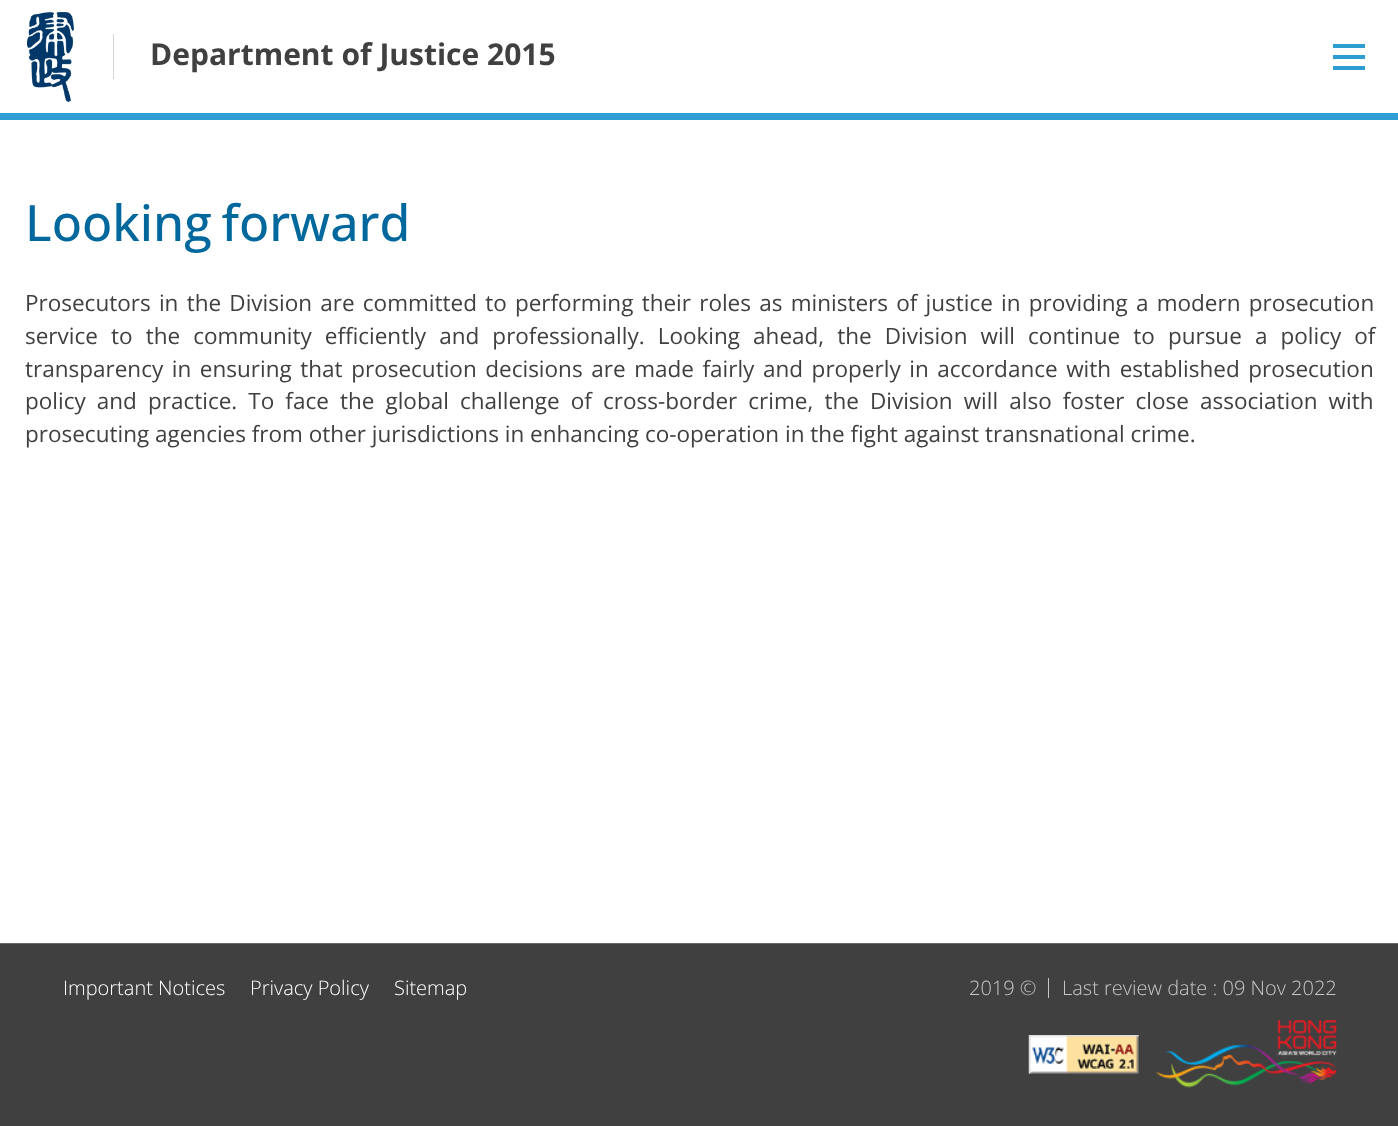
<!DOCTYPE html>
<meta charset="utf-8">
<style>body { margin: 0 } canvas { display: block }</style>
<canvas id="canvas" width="1398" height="1126"></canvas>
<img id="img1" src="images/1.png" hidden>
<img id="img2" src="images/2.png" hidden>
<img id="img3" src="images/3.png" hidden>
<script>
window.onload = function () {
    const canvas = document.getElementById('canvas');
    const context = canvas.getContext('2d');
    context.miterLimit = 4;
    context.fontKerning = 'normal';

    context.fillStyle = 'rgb(255, 255, 255)';
    context.fillRect(0, 0, 1398, 1126);
    context.fillStyle = 'rgb(46, 158, 210)';
    context.fillRect(0, 113, 1398, 7);
    context.drawImage(document.getElementById('img1'), 27, 12, 47, 90);
    context.fillStyle = 'rgb(214, 214, 214)';
    context.fillRect(113, 34, 1, 45);
    context.fillStyle = 'rgb(46, 158, 210)';
    context.fillRect(1333, 55, 32, 4);
    context.fillRect(1333, 44, 32, 4);
    context.fillRect(1333, 66, 32, 4);
    context.fillStyle = 'rgb(64, 64, 64)';
    context.fillRect(0, 944, 1398, 182);
    context.fillStyle = 'rgb(102, 102, 102)';
    context.fillRect(0, 943, 1398, 1);
    context.fillStyle = 'rgb(198, 198, 198)';
    context.fillRect(1048, 978, 1, 20);
    context.drawImage(document.getElementById('img2'), 1028, 1035, 111, 39);
    context.drawImage(document.getElementById('img3'), 1156, 1020, 181, 68);
    context.font = 'bold 30px Open Sans';
    context.fillStyle = 'rgb(64, 64, 64)';
    context.fillText('Department of Justice 2015', 150, 65);
    context.wordSpacing = '-3px';
    context.font = '500 50px Open Sans';
    context.fillStyle = 'rgb(0, 104, 156)';
    context.fillText('Looking forward', 25, 241);
    context.wordSpacing = '2.4px';
    context.font = '22.5px Open Sans';
    context.fillStyle = 'rgb(64, 64, 64)';
    context.fillText('Prosecutors in the Division are committed to performing their roles as ministers of justice in providing a modern prosecution', 25, 311);
    context.wordSpacing = '7.25px';
    context.fillText('service to the community efficiently and professionally. Looking ahead, the Division will continue to pursue a policy of', 25, 344);
    context.wordSpacing = '2.75px';
    context.fillText('transparency in ensuring that prosecution decisions are made fairly and properly in accordance with established prosecution', 25, 377);
    context.wordSpacing = '5.25px';
    context.fillText('policy and practice. To face the global challenge of cross-border crime, the Division will also foster close association with', 25, 409);
    context.wordSpacing = '0px';
    context.fillText('prosecuting agencies from other jurisdictions in enhancing co-operation in the fight against transnational crime.', 25, 442);
    context.font = '300 20px Open Sans';
    context.fillStyle = 'rgb(255, 255, 255)';
    context.fillText('Important Notices', 63, 995);
    context.fillText('Privacy Policy', 250, 995);
    context.fillText('Sitemap', 394, 995);
    context.fillStyle = 'rgb(198, 198, 198)';
    context.fillText('2019 ©', 969, 995);
    context.fillText('Last review date : 09 Nov 2022', 1062, 995);
};
</script>
